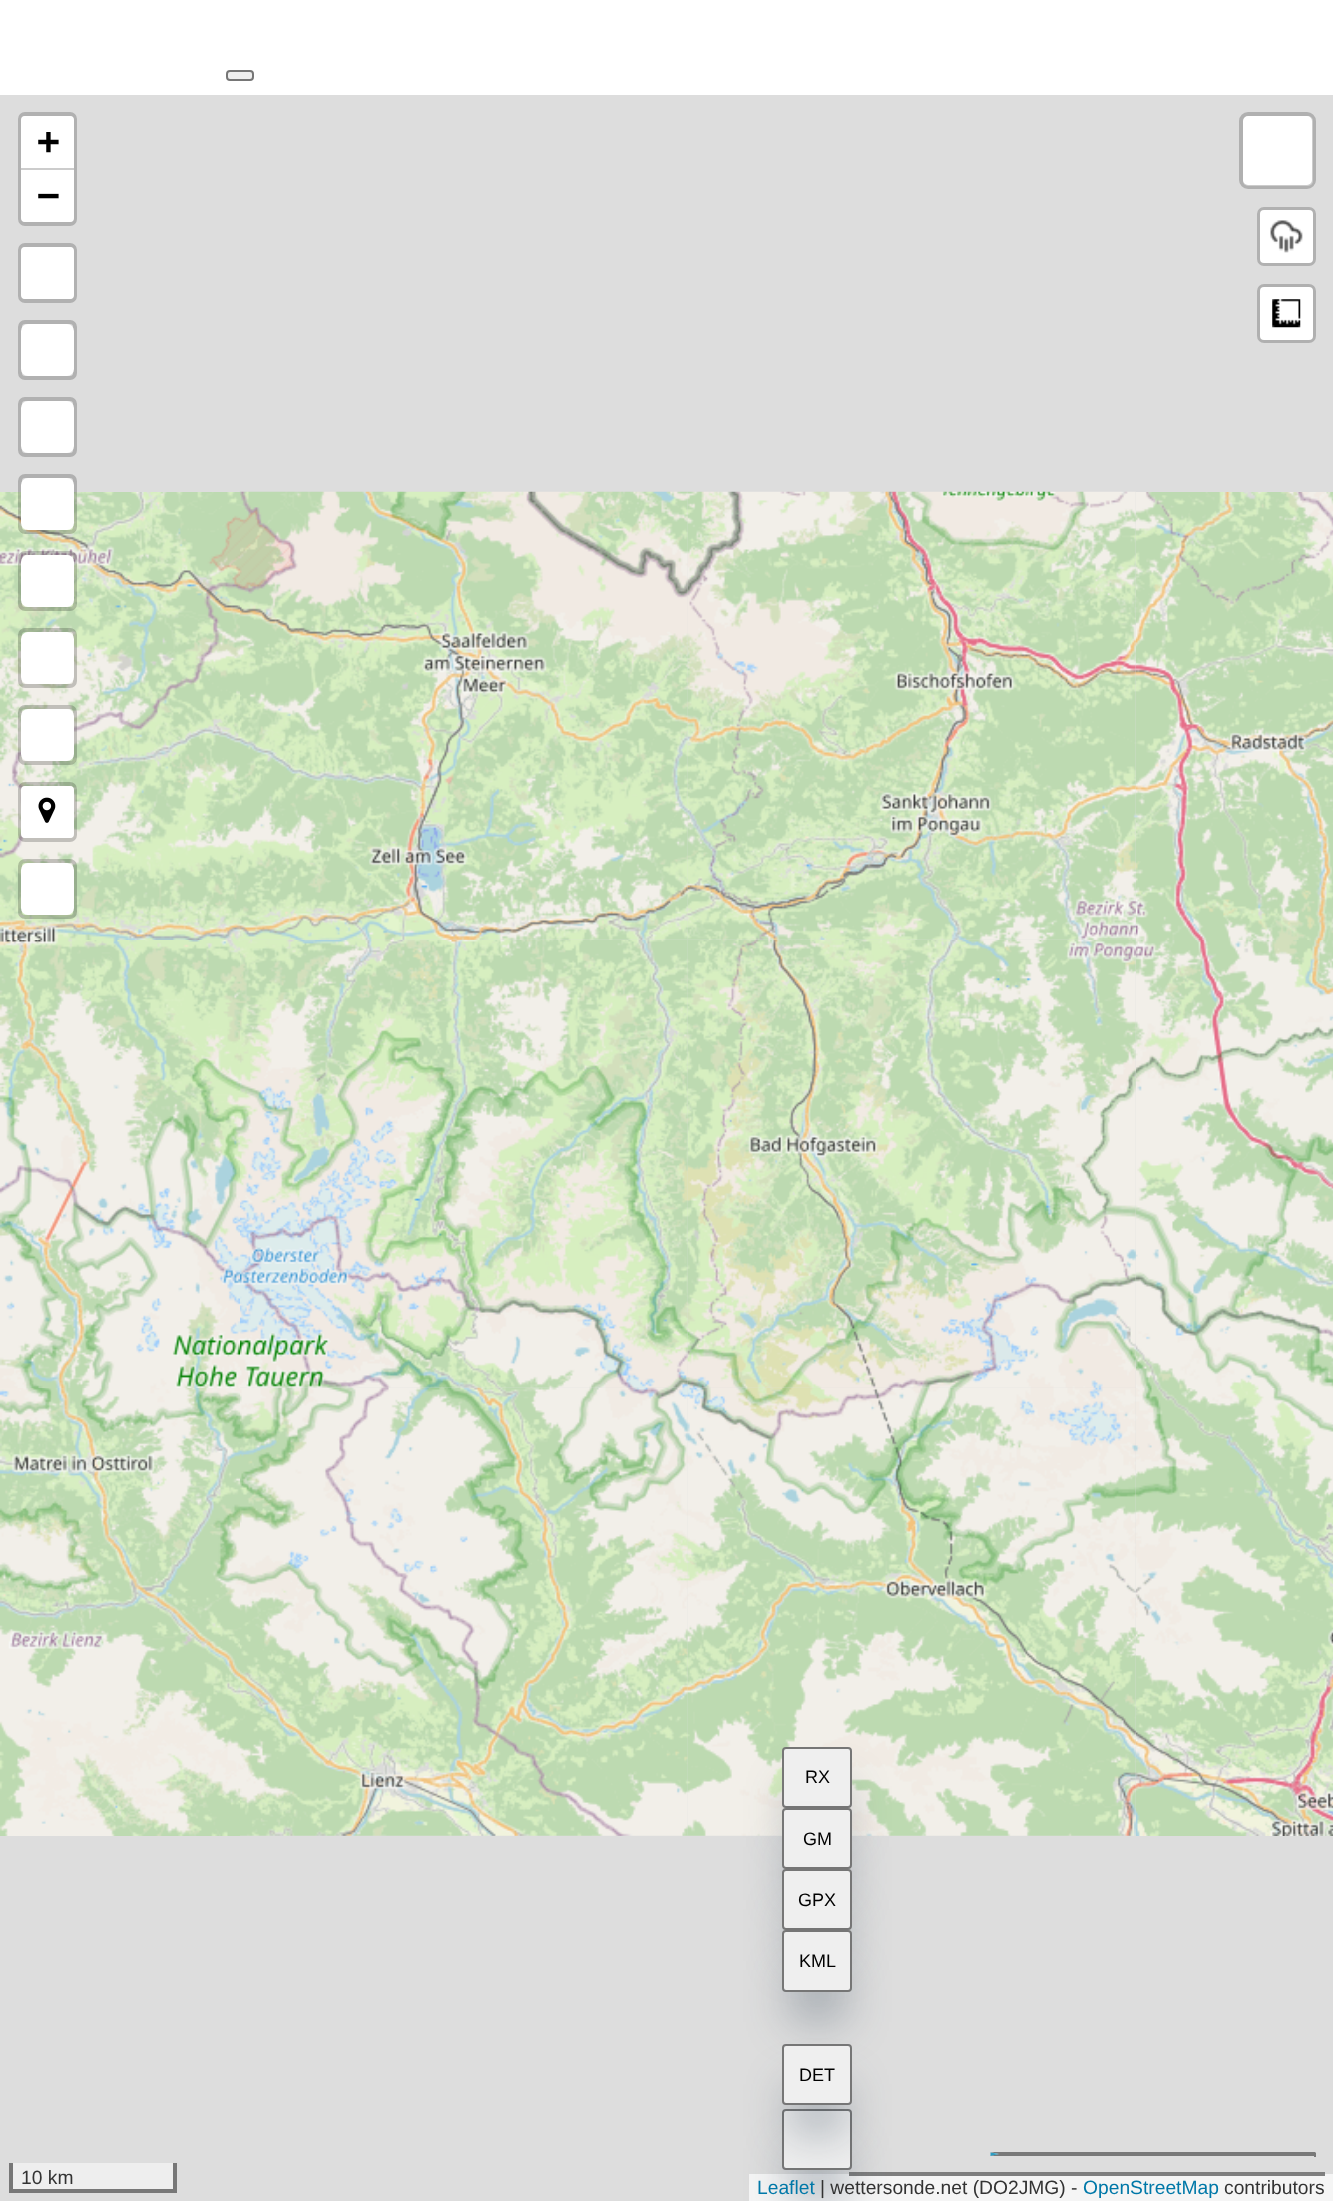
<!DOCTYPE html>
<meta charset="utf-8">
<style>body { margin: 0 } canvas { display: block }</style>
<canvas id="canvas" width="1333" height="2201"></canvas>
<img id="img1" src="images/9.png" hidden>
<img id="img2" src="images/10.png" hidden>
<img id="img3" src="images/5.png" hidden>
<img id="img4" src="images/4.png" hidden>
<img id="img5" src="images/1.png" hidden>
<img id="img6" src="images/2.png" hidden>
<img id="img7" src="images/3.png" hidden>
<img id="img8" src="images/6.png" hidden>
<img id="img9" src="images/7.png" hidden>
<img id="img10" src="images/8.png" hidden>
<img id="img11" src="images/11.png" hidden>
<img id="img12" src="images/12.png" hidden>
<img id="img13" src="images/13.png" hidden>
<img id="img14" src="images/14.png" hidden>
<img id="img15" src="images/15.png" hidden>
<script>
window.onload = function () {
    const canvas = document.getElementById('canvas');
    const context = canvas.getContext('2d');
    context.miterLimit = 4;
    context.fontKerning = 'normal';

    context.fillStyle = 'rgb(255, 255, 255)';
    context.fillRect(0, 0, 1333, 2201);
    context.fillStyle = 'rgb(239, 239, 239)';
    context.beginPath();
    context.roundRect(227, 71, 26, 9, 3);
    context.fill();
    context.strokeStyle = 'rgb(118, 118, 118)';
    context.lineWidth = 2;
    context.stroke();
    context.fillStyle = 'rgb(221, 221, 221)';
    context.fillRect(0, 95, 1333, 2106);
    context.fillStyle = 'rgb(126, 126, 126)';
    context.fillRect(849, 2172, 476, 2);
    context.beginPath();
    context.roundRect(20, 114, 55, 110, 5);
    context.strokeStyle = 'rgb(177, 177, 177)';
    context.lineWidth = 4;
    context.stroke();
    context.fillStyle = 'rgb(255, 255, 255)';
    context.beginPath();
    context.roundRect(21, 116, 53, 54, [4, 4, 0, 0]);
    context.fill();
    context.fillStyle = 'rgb(204, 204, 204)';
    context.fillRect(21, 168, 53, 2);
    context.fillStyle = 'rgb(255, 255, 255)';
    context.beginPath();
    context.roundRect(21, 170, 53, 52, [0, 0, 4, 4]);
    context.fill();
    context.beginPath();
    context.roundRect(20, 245, 55, 56, 5);
    context.stroke();
    context.beginPath();
    context.roundRect(21, 247, 53, 52, 4);
    context.fill();
    context.beginPath();
    context.roundRect(20, 322, 55, 56, 5);
    context.stroke();
    context.beginPath();
    context.roundRect(21, 324, 53, 52, 7);
    context.fill();
    context.beginPath();
    context.roundRect(20, 399, 55, 56, 5);
    context.stroke();
    context.beginPath();
    context.roundRect(21, 401, 53, 52, 7);
    context.fill();
    context.drawImage(document.getElementById('img1'), 240, 939, 448, 449);
    context.drawImage(document.getElementById('img2'), 687, 939, 449, 449);
    context.drawImage(document.getElementById('img3'), 239, 491, 449, 449);
    context.drawImage(document.getElementById('img4'), 0, 492, 240, 448);
    context.beginPath();
    context.roundRect(20, 476, 55, 56, 5);
    context.strokeStyle = 'rgba(0, 0, 0, 0.2)';
    context.stroke();
    context.beginPath();
    context.roundRect(21, 478, 53, 52, 7);
    context.fill();
    context.beginPath();
    context.roundRect(20, 553, 55, 56, 5);
    context.stroke();
    context.beginPath();
    context.roundRect(21, 555, 53, 52, 7);
    context.fill();
    context.beginPath();
    context.roundRect(20, 630, 55, 56, 5);
    context.stroke();
    context.beginPath();
    context.roundRect(21, 632, 53, 52, 7);
    context.fill();
    context.beginPath();
    context.roundRect(20, 707, 55, 56, 5);
    context.stroke();
    context.beginPath();
    context.roundRect(21, 709, 53, 52, 7);
    context.fill();
    context.beginPath();
    context.roundRect(20, 784, 55, 56, 5);
    context.stroke();
    context.beginPath();
    context.roundRect(21, 786, 53, 52, 4);
    context.fill();
    context.drawImage(document.getElementById('img5'), 38, 797, 18, 26);
    context.beginPath();
    context.roundRect(20, 861, 55, 56, 5);
    context.stroke();
    context.beginPath();
    context.roundRect(21, 863, 53, 52, 7);
    context.fill();
    context.beginPath();
    context.roundRect(1243, 116, 70, 70, 5);
    context.fill();
    context.beginPath();
    context.roundRect(1241, 114, 73, 73, 7);
    context.stroke();
    context.beginPath();
    context.roundRect(1259, 209, 55, 55, 5);
    context.strokeStyle = 'rgb(177, 177, 177)';
    context.stroke();
    context.beginPath();
    context.roundRect(1260, 210, 53, 53, 4);
    context.fill();
    context.drawImage(document.getElementById('img6'), 1270, 220, 33, 33);
    context.beginPath();
    context.roundRect(1259, 286, 55, 55, 5);
    context.strokeStyle = 'rgba(0, 0, 0, 0.2)';
    context.stroke();
    context.beginPath();
    context.roundRect(1260, 287, 53, 53, 4);
    context.fill();
    context.drawImage(document.getElementById('img7'), 1272, 299, 29, 29);
    context.fillStyle = 'rgb(238, 238, 238)';
    context.fillRect(13, 2163, 160, 26);
    context.fillStyle = 'rgb(119, 119, 119)';
    context.fillRect(173, 2163, 4, 30);
    context.fillRect(9, 2189, 168, 4);
    context.fillRect(9, 2163, 4, 30);
    context.fillStyle = 'rgb(121, 121, 121)';
    context.beginPath();
    context.moveTo(990, 2152);
    context.lineTo(1316, 2152);
    context.lineTo(1314, 2154);
    context.lineTo(999, 2154);
    context.closePath();
    context.fill();
    context.fillRect(1314, 2153, 2, 4);
    context.beginPath();
    context.moveTo(1316, 2156);
    context.lineTo(990, 2156);
    context.lineTo(999, 2154);
    context.lineTo(1314, 2154);
    context.closePath();
    context.fill();
    context.fillStyle = 'rgb(44, 156, 193)';
    context.beginPath();
    context.moveTo(990.5, 2156);
    context.lineTo(990.5, 2152.5);
    context.lineTo(999, 2154);
    context.closePath();
    context.fill();
    context.fillStyle = 'rgb(245, 245, 245)';
    context.fillRect(749, 2174, 584, 27);
    context.fillStyle = 'rgb(127, 127, 127)';
    context.fillRect(849, 2174, 476, 2);
    context.drawImage(document.getElementById('img8'), 687, 491, 449, 449);
    context.drawImage(document.getElementById('img9'), 1136, 492, 197, 448);
    context.drawImage(document.getElementById('img10'), 0, 940, 240, 448);
    context.drawImage(document.getElementById('img11'), 1136, 940, 197, 448);
    context.drawImage(document.getElementById('img12'), 0, 1388, 240, 448);
    context.drawImage(document.getElementById('img13'), 240, 1387, 448, 449);
    context.drawImage(document.getElementById('img14'), 687, 1387, 449, 449);
    context.drawImage(document.getElementById('img15'), 1136, 1388, 197, 448);
    context.fillStyle = 'rgb(38, 57, 77)';
    context.filter = 'blur(26px)';
    context.beginPath();
    context.rect(800, 1799, 35, 26);
    context.fill();
    context.filter = 'none';
    context.fillStyle = 'rgb(239, 239, 239)';
    context.beginPath();
    context.roundRect(783, 1748, 68, 59, 3);
    context.fill();
    context.strokeStyle = 'rgb(118, 118, 118)';
    context.lineWidth = 2;
    context.stroke();
    context.fillStyle = 'rgb(38, 57, 77)';
    context.filter = 'blur(26px)';
    context.beginPath();
    context.rect(800, 1860, 35, 27);
    context.fill();
    context.filter = 'none';
    context.fillStyle = 'rgb(239, 239, 239)';
    context.beginPath();
    context.roundRect(783, 1809, 68, 59, 3);
    context.fill();
    context.stroke();
    context.fillStyle = 'rgb(38, 57, 77)';
    context.filter = 'blur(26px)';
    context.beginPath();
    context.rect(800, 1922, 35, 26);
    context.fill();
    context.filter = 'none';
    context.fillStyle = 'rgb(239, 239, 239)';
    context.beginPath();
    context.roundRect(783, 1870, 68, 59, 3);
    context.fill();
    context.stroke();
    context.fillStyle = 'rgb(38, 57, 77)';
    context.filter = 'blur(26px)';
    context.beginPath();
    context.rect(800, 1983, 35, 26);
    context.fill();
    context.filter = 'none';
    context.fillStyle = 'rgb(239, 239, 239)';
    context.beginPath();
    context.roundRect(783, 1931, 68, 60, 3);
    context.fill();
    context.stroke();
    context.fillStyle = 'rgb(38, 57, 77)';
    context.filter = 'blur(26px)';
    context.beginPath();
    context.rect(800, 2161, 35, 27);
    context.fill();
    context.filter = 'none';
    context.fillStyle = 'rgb(239, 239, 239)';
    context.beginPath();
    context.roundRect(783, 2110, 68, 59, 3);
    context.fill();
    context.stroke();
    context.fillStyle = 'rgb(38, 57, 77)';
    context.filter = 'blur(26px)';
    context.beginPath();
    context.rect(800, 2097, 35, 26);
    context.fill();
    context.filter = 'none';
    context.fillStyle = 'rgb(239, 239, 239)';
    context.beginPath();
    context.roundRect(783, 2045, 68, 59, 3);
    context.fill();
    context.stroke();
    context.font = 'bold 38px DejaVu Sans Mono';
    context.fillStyle = 'rgb(0, 0, 0)';
    context.fillText('+', 37, 154);
    context.fillText('−', 37, 208);
    context.font = '19.25px Liberation Sans';
    context.fillStyle = 'rgb(51, 51, 51)';
    context.fillText('10 km', 21, 2184);
    context.fillStyle = 'rgb(0, 120, 168)';
    context.fillText('Leaflet', 757, 2194);
    context.fillStyle = 'rgb(51, 51, 51)';
    context.fillText('| wettersonde.net (DO2JMG) -', 820, 2194);
    context.fillStyle = 'rgb(0, 120, 168)';
    context.fillText('OpenStreetMap', 1083, 2194);
    context.fillStyle = 'rgb(51, 51, 51)';
    context.fillText('contributors', 1224, 2194);
    context.font = '18px Liberation Sans';
    context.fillStyle = 'rgb(0, 0, 0)';
    context.fillText('RX', 805, 1783);
    context.fillText('GM', 803, 1845);
    context.fillText('GPX', 798, 1906);
    context.fillText('KML', 799, 1967);
    context.fillText('DET', 799, 2081);
};
</script>
